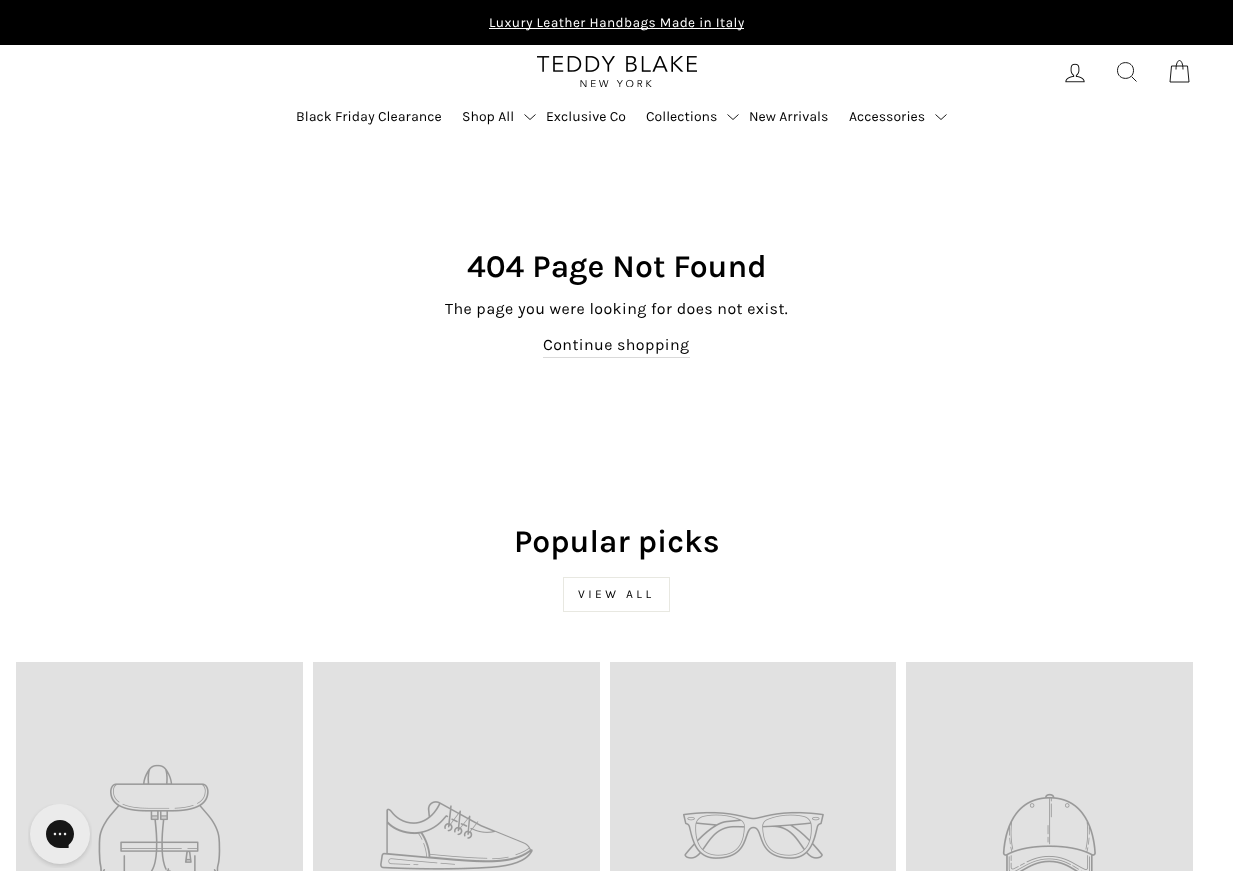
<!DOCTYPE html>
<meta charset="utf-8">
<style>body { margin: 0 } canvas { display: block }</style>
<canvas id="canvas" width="1233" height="871"></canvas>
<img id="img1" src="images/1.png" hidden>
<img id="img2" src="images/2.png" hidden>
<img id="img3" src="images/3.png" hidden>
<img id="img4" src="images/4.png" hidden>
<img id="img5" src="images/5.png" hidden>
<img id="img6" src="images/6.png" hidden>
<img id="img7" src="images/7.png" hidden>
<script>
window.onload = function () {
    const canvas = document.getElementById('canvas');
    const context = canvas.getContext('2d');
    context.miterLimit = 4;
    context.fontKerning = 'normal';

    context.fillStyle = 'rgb(255, 255, 255)';
    context.fillRect(0, 0, 1233, 871);
    context.fillStyle = 'rgb(0, 0, 0)';
    context.fillRect(0, 0, 1233, 45);
    context.fillStyle = 'rgb(255, 255, 255)';
    context.fillRect(489, 28, 255, 1);
    context.drawImage(document.getElementById('img1'), 537, 56, 160, 31);
    context.drawImage(document.getElementById('img2'), 1065, 63, 20, 20);
    context.beginPath();
    context.moveTo(1133.5, 70.5);
    context.bezierCurveTo(1133.5, 81, 1117.5, 81, 1117.5, 70.5);
    context.bezierCurveTo(1117.5, 60, 1133.5, 60, 1133.5, 70.5);
    context.closePath();
    context.moveTo(1136.5, 81.5);
    context.lineTo(1131.5, 76.5);
    context.strokeStyle = 'rgb(0, 0, 0)';
    context.lineWidth = 0.9;
    context.stroke();
    context.beginPath();
    context.moveTo(1176, 69.5);
    context.bezierCurveTo(1176, 57.5, 1183, 57.5, 1183, 69.5);
    context.moveTo(1171.5, 66);
    context.lineTo(1187.5, 66);
    context.lineTo(1189, 82);
    context.lineTo(1170, 82);
    context.closePath();
    context.stroke();
    context.beginPath();
    context.moveTo(524.5, 114.5);
    context.lineTo(530, 119.5);
    context.lineTo(535.5, 114.5);
    context.stroke();
    context.beginPath();
    context.moveTo(727.5, 114.5);
    context.lineTo(733, 119.5);
    context.lineTo(738.5, 114.5);
    context.stroke();
    context.beginPath();
    context.moveTo(935.5, 114.5);
    context.lineTo(941, 119.5);
    context.lineTo(946.5, 114.5);
    context.stroke();
    context.fillStyle = 'rgb(217, 217, 217)';
    context.fillRect(543, 357, 147, 1);
    context.strokeStyle = 'rgb(232, 232, 225)';
    context.lineWidth = 1;
    context.strokeRect(563.5, 577.5, 106, 34);
    context.fillStyle = 'rgb(225, 225, 225)';
    context.fillRect(16, 662, 287, 209);
    context.drawImage(document.getElementById('img3'), 98, 764, 123, 107);
    context.fillRect(313, 662, 287, 209);
    context.drawImage(document.getElementById('img4'), 380, 801, 153, 69);
    context.fillRect(610, 662, 286, 209);
    context.drawImage(document.getElementById('img5'), 683, 811, 141, 48);
    context.fillRect(906, 662, 287, 209);
    context.drawImage(document.getElementById('img6'), 1002, 793, 94, 78);
    context.drawImage(document.getElementById('img7'), 28, 804, 64, 64);
    context.letterSpacing = '0.4px';
    context.font = '13.6px Karla';
    context.fillStyle = 'rgb(255, 255, 255)';
    context.fillText('Luxury Leather Handbags Made in Italy', 489, 27);
    context.letterSpacing = '0px';
    context.font = '14px Karla';
    context.fillStyle = 'rgb(0, 0, 0)';
    context.fillText('Black Friday Clearance', 296, 121);
    context.fillText('Shop All', 462, 121);
    context.fillText('Exclusive Co', 546, 121);
    context.fillText('Collections', 646, 121);
    context.fillText('New Arrivals', 749, 121);
    context.fillText('Accessories', 849, 121);
    context.font = '600 32px Karla';
    context.fillText('404 Page Not Found', 467, 277);
    context.letterSpacing = '0.4px';
    context.font = '16px Karla';
    context.fillText('The page you were looking for does not exist.', 445, 314);
    context.fillText('Continue shopping', 543, 350);
    context.letterSpacing = '0px';
    context.font = '600 32px Karla';
    context.fillText('Popular picks', 514, 552);
    context.letterSpacing = '3.5px';
    context.font = '12px Karla';
    context.fillText('VIEW ALL', 578, 598);
};
</script>
